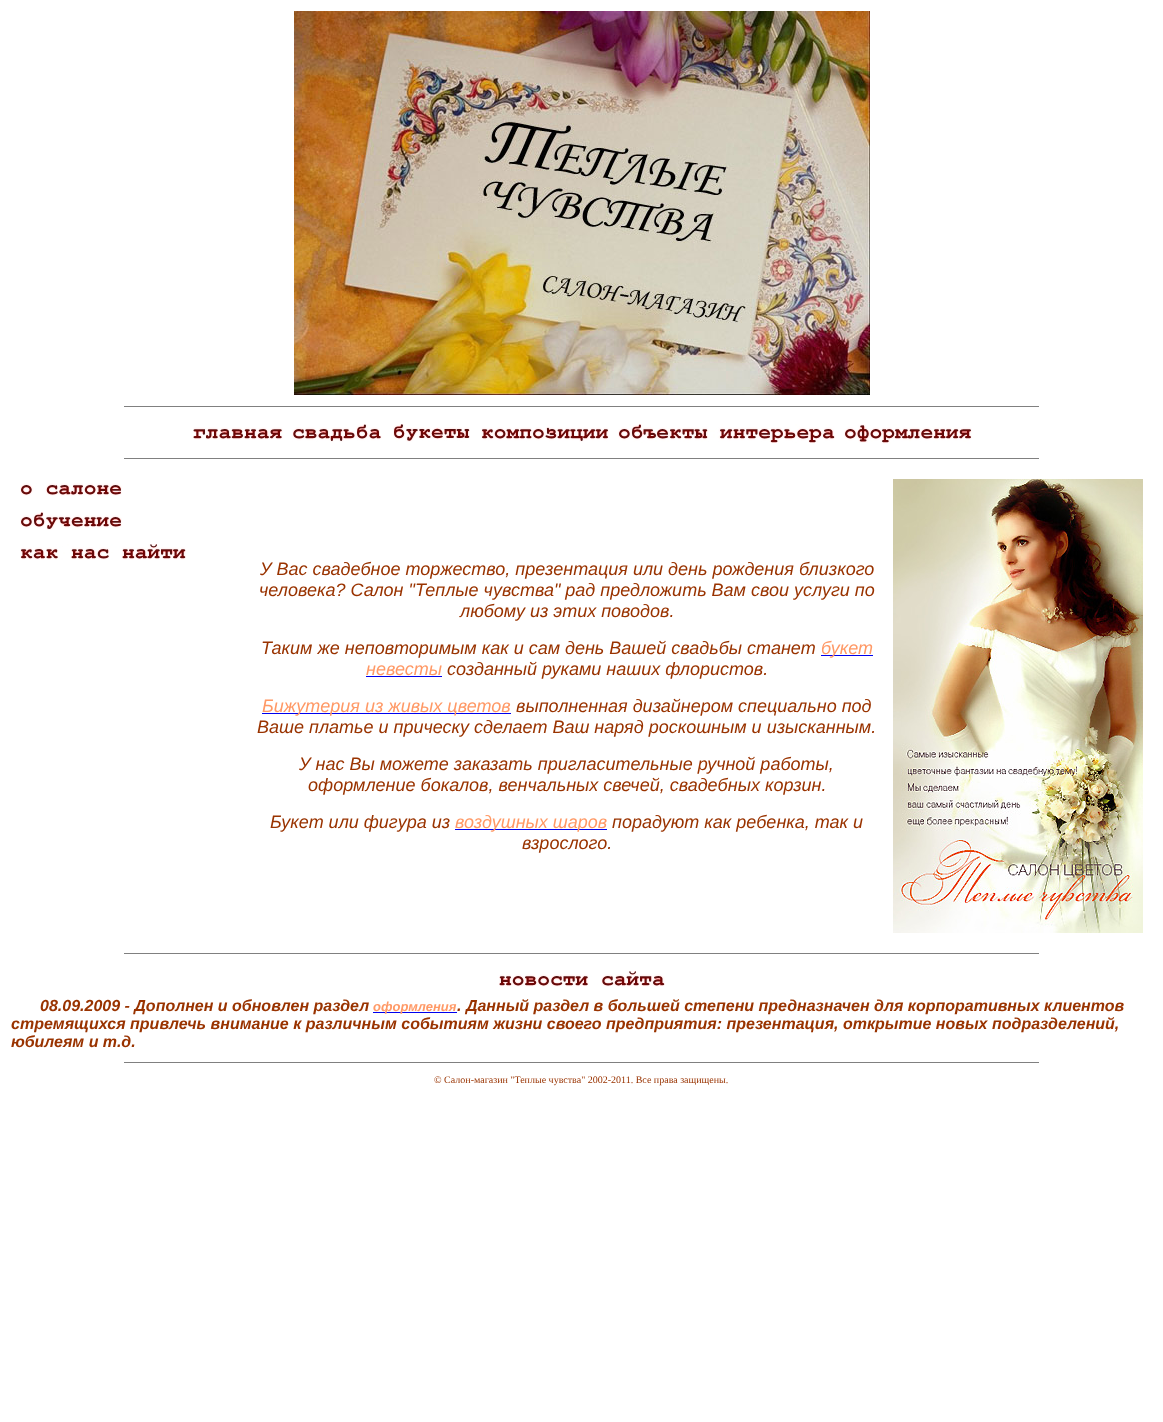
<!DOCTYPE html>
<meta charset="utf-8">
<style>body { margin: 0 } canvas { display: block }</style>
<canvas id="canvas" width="1163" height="1422"></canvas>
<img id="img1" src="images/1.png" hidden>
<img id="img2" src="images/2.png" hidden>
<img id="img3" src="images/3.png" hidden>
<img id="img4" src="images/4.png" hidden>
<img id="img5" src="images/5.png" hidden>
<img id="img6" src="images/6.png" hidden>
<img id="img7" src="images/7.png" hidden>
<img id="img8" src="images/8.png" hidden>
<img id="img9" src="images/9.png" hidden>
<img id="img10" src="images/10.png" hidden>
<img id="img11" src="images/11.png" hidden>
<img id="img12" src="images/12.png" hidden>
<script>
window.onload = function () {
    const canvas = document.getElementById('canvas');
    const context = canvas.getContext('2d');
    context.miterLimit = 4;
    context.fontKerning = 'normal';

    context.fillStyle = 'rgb(255, 255, 255)';
    context.fillRect(0, 0, 1163, 1422);
    context.drawImage(document.getElementById('img1'), 294, 11, 576, 384);
    context.fillStyle = 'rgb(128, 128, 128)';
    context.fillRect(124, 406, 915, 1);
    context.drawImage(document.getElementById('img2'), 193, 427, 90, 13);
    context.drawImage(document.getElementById('img3'), 292, 424, 90, 18);
    context.drawImage(document.getElementById('img4'), 393, 424, 77, 18);
    context.drawImage(document.getElementById('img5'), 481, 427, 128, 15);
    context.drawImage(document.getElementById('img6'), 618, 424, 217, 19);
    context.drawImage(document.getElementById('img7'), 844, 424, 128, 20);
    context.fillRect(124, 458, 915, 1);
    context.drawImage(document.getElementById('img8'), 20, 483, 102, 13);
    context.drawImage(document.getElementById('img9'), 20, 512, 102, 18);
    context.drawImage(document.getElementById('img10'), 20, 544, 166, 16);
    context.fillStyle = 'rgb(0, 0, 238)';
    context.fillRect(821, 655, 52, 1);
    context.fillRect(366, 676, 76, 1);
    context.fillRect(262, 713, 249, 1);
    context.fillRect(455, 829, 152, 1);
    context.drawImage(document.getElementById('img11'), 893, 479, 250, 454);
    context.fillStyle = 'rgb(128, 128, 128)';
    context.fillRect(124, 953, 915, 1);
    context.drawImage(document.getElementById('img12'), 499, 971, 166, 16);
    context.fillStyle = 'rgb(0, 0, 238)';
    context.fillRect(373, 1012, 84, 1);
    context.fillStyle = 'rgb(128, 128, 128)';
    context.fillRect(124, 1062, 915, 1);
    context.font = 'italic 18px Liberation Sans';
    context.fillStyle = 'rgb(153, 51, 0)';
    context.fillText('У Вас свадебное торжество, презентация или день рождения близкого', 260, 575);
    context.fillText('человека? Салон "Теплые чувства" рад предложить Вам свои услуги по', 259, 596);
    context.fillText('любому из этих поводов.', 460, 617);
    context.fillText('Таким же неповторимым как и сам день Вашей свадьбы станет', 261, 654);
    context.fillStyle = 'rgb(255, 153, 102)';
    context.fillText('букет', 821, 654);
    context.fillText('невесты', 366, 675);
    context.fillStyle = 'rgb(153, 51, 0)';
    context.fillText('созданный руками наших флористов.', 447, 675);
    context.fillStyle = 'rgb(255, 153, 102)';
    context.fillText('Бижутерия из живых цветов', 262, 712);
    context.fillStyle = 'rgb(153, 51, 0)';
    context.fillText('выполненная дизайнером специально под', 516, 712);
    context.fillText('Ваше платье и прическу сделает Ваш наряд роскошным и изысканным.', 257, 733);
    context.fillText('У нас Вы можете заказать пригласительные ручной работы,', 299, 770);
    context.fillText('оформление бокалов, венчальных свечей, свадебных корзин.', 308, 791);
    context.fillText('Букет или фигура из', 270, 828);
    context.fillStyle = 'rgb(255, 153, 102)';
    context.fillText('воздушных шаров', 455, 828);
    context.fillStyle = 'rgb(153, 51, 0)';
    context.fillText('порадуют как ребенка, так и', 612, 828);
    context.fillText('взрослого.', 522, 849);
    context.font = 'italic bold 16px Liberation Sans';
    context.fillText('08.09.2009 - Дополнен и обновлен раздел', 40, 1011);
    context.font = 'italic bold 13px Liberation Sans';
    context.fillStyle = 'rgb(255, 153, 102)';
    context.fillText('оформления', 373, 1011);
    context.font = 'italic bold 16px Liberation Sans';
    context.fillStyle = 'rgb(153, 51, 0)';
    context.fillText('. Данный раздел в большей степени предназначен для корпоративных клиентов', 457, 1011);
    context.fillText('стремящихся привлечь внимание к различным событиям жизни своего предприятия: презентация, открытие новых подразделений,', 11, 1029);
    context.fillText('юбилеям и т.д.', 11, 1047);
    context.font = '10px Liberation Serif';
    context.fillText('© Салон-магазин "Теплые чувства" 2002-2011. Все права защищены.', 434, 1083);
};
</script>
